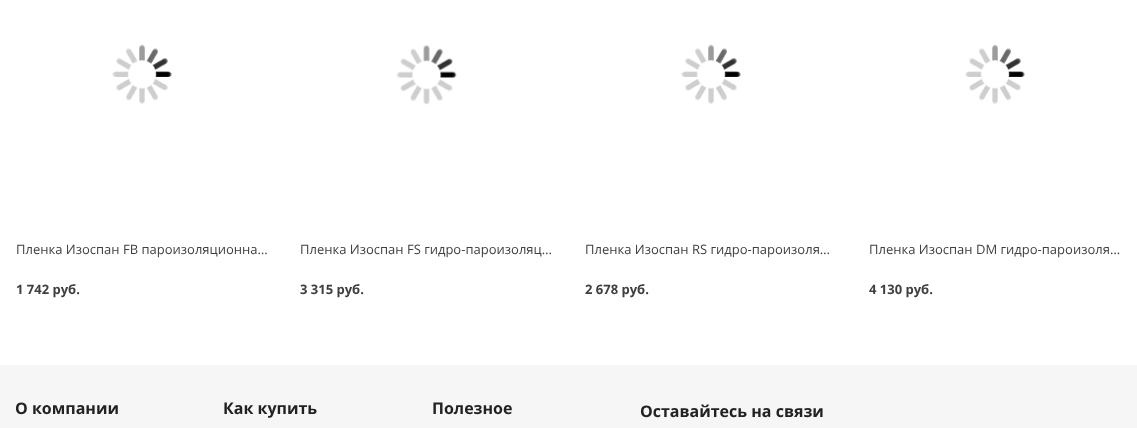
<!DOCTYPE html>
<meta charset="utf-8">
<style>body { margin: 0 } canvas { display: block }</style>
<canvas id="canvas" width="1137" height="428"></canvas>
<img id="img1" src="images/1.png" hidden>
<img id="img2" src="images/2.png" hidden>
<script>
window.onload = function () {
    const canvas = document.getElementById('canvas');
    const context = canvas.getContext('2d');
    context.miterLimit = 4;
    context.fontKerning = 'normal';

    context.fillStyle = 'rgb(255, 255, 255)';
    context.fillRect(0, 0, 1137, 428);
    context.drawImage(document.getElementById('img1'), 112, 44, 60, 60);
    context.drawImage(document.getElementById('img2'), 396, 45, 61, 60);
    context.drawImage(document.getElementById('img1'), 681, 44, 60, 60);
    context.drawImage(document.getElementById('img1'), 965, 44, 60, 60);
    context.fillStyle = 'rgb(246, 246, 247)';
    context.fillRect(0, 365, 1137, 63);
    context.font = '13px Open Sans';
    context.fillStyle = 'rgb(63, 63, 63)';
    context.fillText('Пленка Изоспан FB пароизоляционна…', 16, 254);
    context.font = 'bold 13px Open Sans';
    context.fillText('1 742 руб.', 16, 294);
    context.font = '13px Open Sans';
    context.fillText('Пленка Изоспан FS гидро-пароизоляц…', 300, 254);
    context.font = 'bold 13px Open Sans';
    context.fillText('3 315 руб.', 300, 294);
    context.font = '13px Open Sans';
    context.fillText('Пленка Изоспан RS гидро-пароизоля…', 585, 254);
    context.font = 'bold 13px Open Sans';
    context.fillText('2 678 руб.', 585, 294);
    context.font = '13px Open Sans';
    context.fillText('Пленка Изоспан DM гидро-пароизоля…', 869, 254);
    context.font = 'bold 13px Open Sans';
    context.fillText('4 130 руб.', 869, 294);
    context.font = 'bold 16px Open Sans';
    context.fillStyle = 'rgb(34, 34, 34)';
    context.fillText('О компании', 15, 414);
    context.fillText('Как купить', 223, 414);
    context.fillText('Полезное', 432, 414);
    context.fillText('Оставайтесь на связи', 640, 417);
};
</script>
